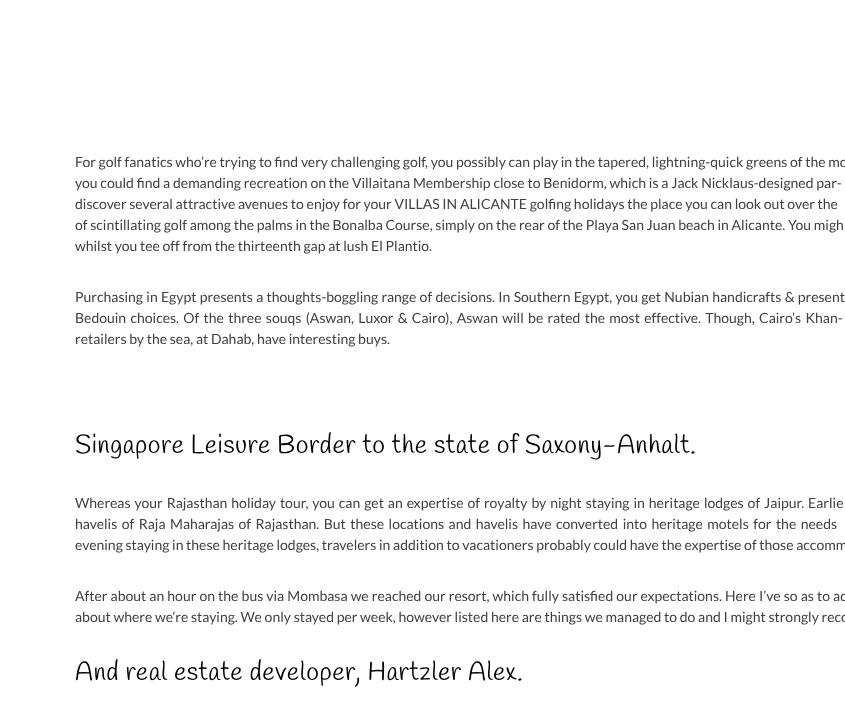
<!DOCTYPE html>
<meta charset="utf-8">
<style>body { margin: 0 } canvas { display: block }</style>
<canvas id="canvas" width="845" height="713"></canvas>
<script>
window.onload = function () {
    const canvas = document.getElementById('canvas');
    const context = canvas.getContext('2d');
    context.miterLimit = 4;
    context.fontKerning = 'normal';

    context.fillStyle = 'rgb(255, 255, 255)';
    context.fillRect(0, 0, 845, 713);
    context.font = '14px Lato';
    context.fillStyle = 'rgb(64, 64, 64)';
    context.fillText('For golf fanatics who’re trying to find very challenging golf, you possibly can play in the tapered, lightning-quick greens of the mo', 75, 167);
    context.wordSpacing = '0.1px';
    context.fillText('you could find a demanding recreation on the Villaitana Membership close to Benidorm, which is a Jack Nicklaus-designed par-', 75, 188);
    context.wordSpacing = '0px';
    context.fillText('discover several attractive avenues to enjoy for your VILLAS IN ALICANTE golfing holidays the place you can look out over the', 75, 209);
    context.fillText('of scintillating golf among the palms in the Bonalba Course, simply on the rear of the Playa San Juan beach in Alicante. You migh', 75, 230);
    context.fillText('whilst you tee off from the thirteenth gap at lush El Plantio.', 75, 251);
    context.wordSpacing = '0.6px';
    context.fillText('Purchasing in Egypt presents a thoughts-boggling range of decisions. In Southern Egypt, you get Nubian handicrafts & present', 75, 302);
    context.wordSpacing = '1.6px';
    context.fillText('Bedouin choices. Of the three souqs (Aswan, Luxor & Cairo), Aswan will be rated the most effective. Though, Cairo’s Khan-', 75, 323);
    context.wordSpacing = '0px';
    context.fillText('retailers by the sea, at Dahab, have interesting buys.', 75, 344);
    context.letterSpacing = '0.5px';
    context.font = '26px Handlee';
    context.fillStyle = 'rgb(0, 0, 0)';
    context.fillText('Singapore Leisure Border to the state of Saxony-Anhalt.', 75, 453);
    context.letterSpacing = '0px';
    context.wordSpacing = '1.25px';
    context.font = '14px Lato';
    context.fillStyle = 'rgb(64, 64, 64)';
    context.fillText('Whereas your Rajasthan holiday tour, you can get an expertise of royalty by night staying in heritage lodges of Jaipur. Earlie', 75, 508);
    context.wordSpacing = '1.8px';
    context.fillText('havelis of Raja Maharajas of Rajasthan. But these locations and havelis have converted into heritage motels for the needs', 75, 529);
    context.wordSpacing = '0px';
    context.fillText('evening staying in these heritage lodges, travelers in addition to vacationers probably could have the expertise of those accomm', 75, 550);
    context.wordSpacing = '0.4px';
    context.fillText('After about an hour on the bus via Mombasa we reached our resort, which fully satisfied our expectations. Here I’ve so as to ad', 75, 601);
    context.wordSpacing = '0px';
    context.fillText('about where we’re staying. We only stayed per week, however listed here are things we managed to do and I might strongly reco', 75, 622);
    context.letterSpacing = '0.5px';
    context.font = '26px Handlee';
    context.fillStyle = 'rgb(0, 0, 0)';
    context.fillText('And real estate developer, Hartzler Alex.', 75, 680);
};
</script>
